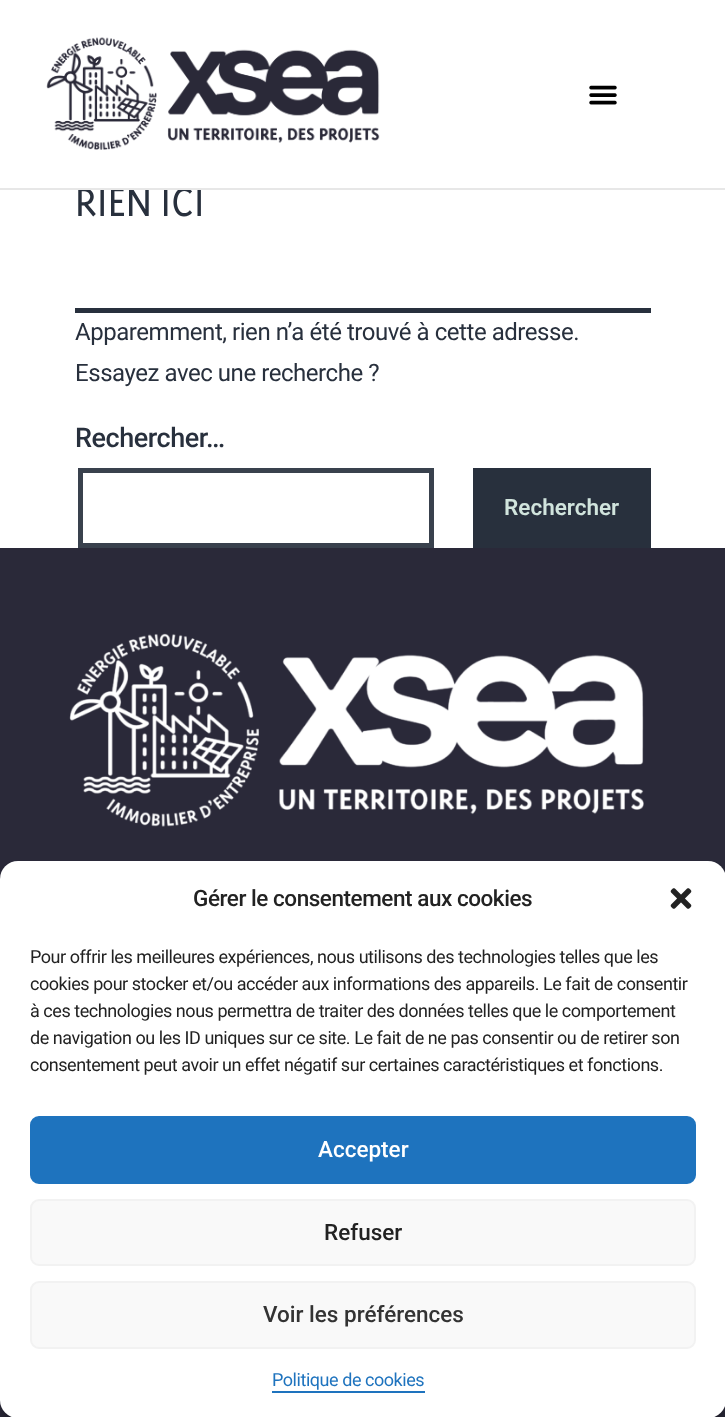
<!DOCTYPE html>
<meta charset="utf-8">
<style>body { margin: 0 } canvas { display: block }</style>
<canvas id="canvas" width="725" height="1417"></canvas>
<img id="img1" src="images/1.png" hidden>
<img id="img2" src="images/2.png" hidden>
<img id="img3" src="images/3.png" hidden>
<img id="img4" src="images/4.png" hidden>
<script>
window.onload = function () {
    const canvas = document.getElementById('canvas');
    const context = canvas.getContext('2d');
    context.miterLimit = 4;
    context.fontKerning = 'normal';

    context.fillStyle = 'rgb(255, 255, 255)';
    context.fillRect(0, 0, 725, 1417);
    context.drawImage(document.getElementById('img1'), 46, 37, 334, 113);
    context.drawImage(document.getElementById('img2'), 589, 85, 28, 20);
    context.fillStyle = 'rgb(40, 48, 61)';
    context.fillRect(75, 308, 576, 5);
    context.strokeStyle = 'rgb(57, 65, 77)';
    context.lineWidth = 5;
    context.strokeRect(80.5, 470.5, 351, 75);
    context.fillRect(473, 468, 178, 80);
    context.fillStyle = 'rgb(42, 41, 57)';
    context.fillRect(0, 548, 725, 869);
    context.drawImage(document.getElementById('img3'), 69, 633, 575, 194);
    context.fillStyle = 'rgba(0, 0, 0, 0.23)';
    context.filter = 'blur(4.5px)';
    context.beginPath();
    context.roundRect(0, 870, 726, 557, 18);
    context.fill();
    context.filter = 'none';
    context.fillStyle = 'rgb(255, 255, 255)';
    context.beginPath();
    context.roundRect(0, 861, 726, 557, 18);
    context.fill();
    context.drawImage(document.getElementById('img4'), 670, 888, 22, 21);
    context.fillStyle = 'rgb(30, 115, 190)';
    context.beginPath();
    context.roundRect(31, 1117, 664, 66, 8);
    context.fill();
    context.strokeStyle = 'rgb(30, 115, 190)';
    context.lineWidth = 2;
    context.stroke();
    context.fillStyle = 'rgb(249, 249, 249)';
    context.beginPath();
    context.roundRect(31, 1200, 664, 65, 8);
    context.fill();
    context.strokeStyle = 'rgb(242, 242, 242)';
    context.stroke();
    context.beginPath();
    context.roundRect(31, 1282, 664, 66, 8);
    context.fill();
    context.stroke();
    context.fillStyle = 'rgb(30, 115, 190)';
    context.fillRect(272, 1391, 153, 2);
    context.font = '300 46.5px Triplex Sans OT';
    context.fillStyle = 'rgb(40, 48, 61)';
    context.fillText('RIEN ICI', 75, 216);
    context.fillStyle = 'rgb(231, 231, 231)';
    context.fillRect(0, 188, 725, 2);
    context.fillStyle = 'rgb(255, 255, 255)';
    context.fillRect(181, 187, 6, 1);
    context.letterSpacing = '-0.45px';
    context.font = '24px Roboto';
    context.fillStyle = 'rgb(40, 48, 61)';
    context.fillText('Apparemment, rien n’a été trouvé à cette adresse.', 75, 340);
    context.fillText('Essayez avec une recherche ?', 75, 381);
    context.font = '500 27px Roboto';
    context.fillText('Rechercher…', 75, 447);
    context.letterSpacing = '0px';
    context.font = '600 22.5px Roboto';
    context.fillStyle = 'rgb(209, 228, 221)';
    context.fillText('Rechercher', 504, 515);
    context.letterSpacing = '-0.45px';
    context.font = '500 22.5px Roboto';
    context.fillStyle = 'rgb(34, 34, 34)';
    context.fillText('Gérer le consentement aux cookies', 193, 906);
    context.font = '18px Roboto';
    context.fillText('Pour offrir les meilleures expériences, nous utilisons des technologies telles que les', 30, 963);
    context.fillText('cookies pour stocker et/ou accéder aux informations des appareils. Le fait de consentir', 30, 990);
    context.fillText('à ces technologies nous permettra de traiter des données telles que le comportement', 30, 1017);
    context.fillText('de navigation ou les ID uniques sur ce site. Le fait de ne pas consentir ou de retirer son', 30, 1044);
    context.fillText('consentement peut avoir un effet négatif sur certaines caractéristiques et fonctions.', 30, 1071);
    context.letterSpacing = '0px';
    context.font = '500 22.5px Roboto';
    context.fillStyle = 'rgb(255, 255, 255)';
    context.fillText('Accepter', 318, 1157);
    context.fillStyle = 'rgb(34, 34, 34)';
    context.fillText('Refuser', 324, 1240);
    context.fillStyle = 'rgb(51, 51, 51)';
    context.fillText('Voir les préférences', 263, 1322);
    context.letterSpacing = '-0.45px';
    context.font = '18px Roboto';
    context.fillStyle = 'rgb(30, 115, 190)';
    context.fillText('Politique de cookies', 272, 1386);
};
</script>
